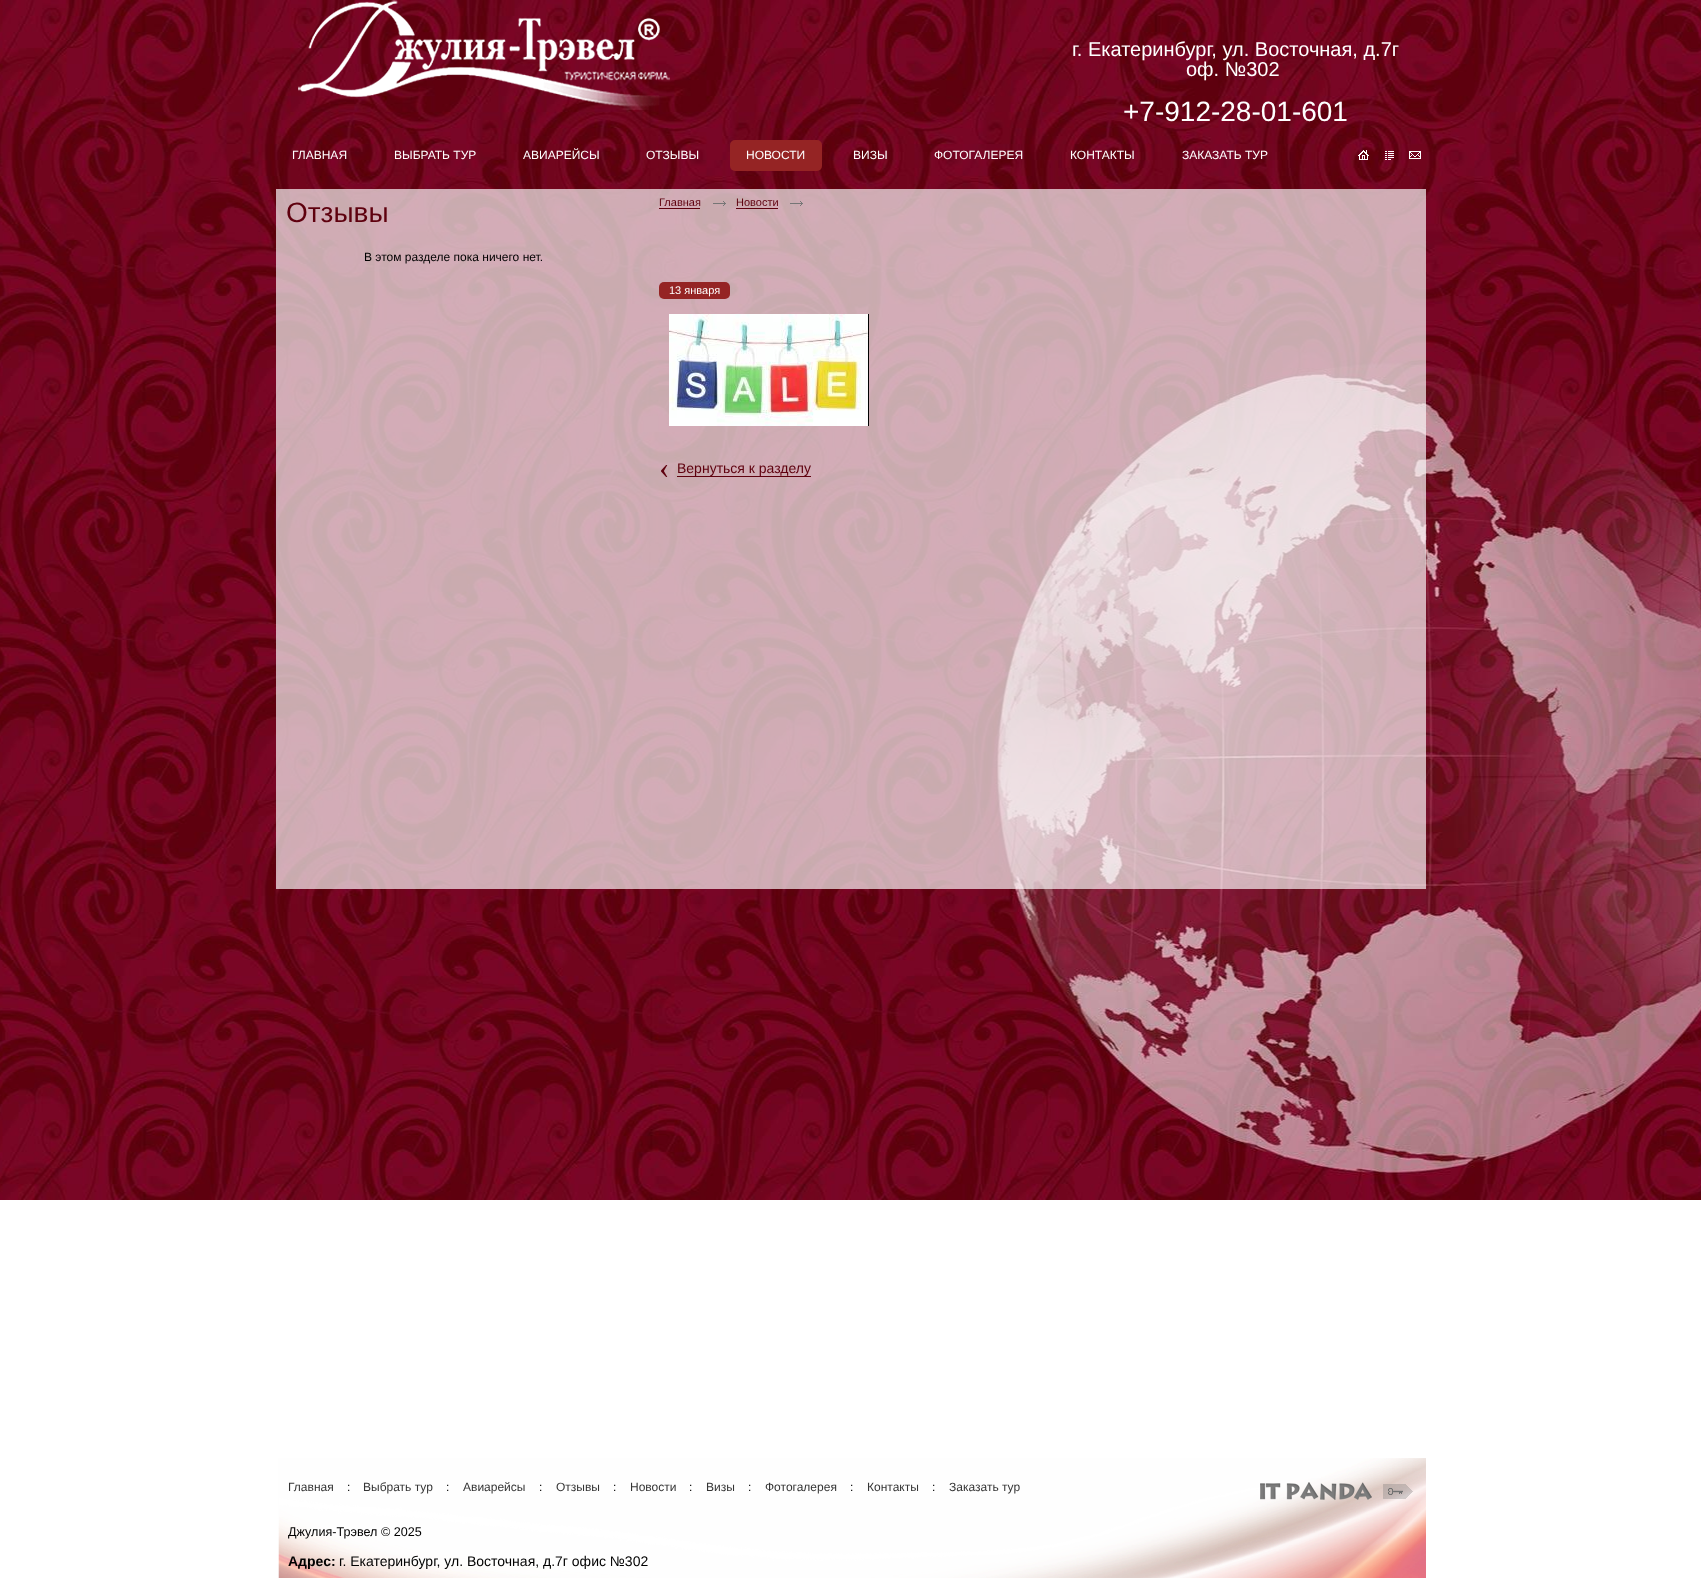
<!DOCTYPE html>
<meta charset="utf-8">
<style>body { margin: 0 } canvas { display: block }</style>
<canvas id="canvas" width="1701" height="1578"></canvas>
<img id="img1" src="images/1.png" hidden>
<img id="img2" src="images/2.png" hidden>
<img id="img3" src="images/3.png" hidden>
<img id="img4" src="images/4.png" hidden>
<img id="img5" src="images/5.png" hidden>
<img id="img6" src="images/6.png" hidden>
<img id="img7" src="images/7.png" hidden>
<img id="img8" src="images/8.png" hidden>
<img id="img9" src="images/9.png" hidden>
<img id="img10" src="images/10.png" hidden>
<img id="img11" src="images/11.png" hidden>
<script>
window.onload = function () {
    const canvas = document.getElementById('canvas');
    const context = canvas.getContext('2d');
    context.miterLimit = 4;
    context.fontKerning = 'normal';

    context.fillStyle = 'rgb(255, 255, 255)';
    context.fillRect(0, 0, 1701, 1578);
    context.drawImage(document.getElementById('img1'), 0, 0, 1701, 1200);
    context.drawImage(document.getElementById('img2'), 298, 0, 372, 110);
    context.fillStyle = 'rgb(149, 36, 36)';
    context.beginPath();
    context.roundRect(730, 140, 92, 31, 5);
    context.fill();
    context.drawImage(document.getElementById('img3'), 1358, 150, 11, 10);
    context.drawImage(document.getElementById('img4'), 1385, 151, 9, 9);
    context.drawImage(document.getElementById('img5'), 1409, 151, 12, 8);
    context.fillStyle = 'rgba(255, 255, 255, 0.67)';
    context.fillRect(276, 189, 1150, 700);
    context.fillStyle = 'rgb(95, 1, 14)';
    context.fillRect(659, 208, 41, 1);
    context.drawImage(document.getElementById('img6'), 713, 201, 13, 5);
    context.fillRect(736, 208, 42, 1);
    context.drawImage(document.getElementById('img7'), 790, 201, 13, 5);
    context.fillStyle = 'rgb(149, 36, 36)';
    context.beginPath();
    context.roundRect(659, 282, 71, 17, 5);
    context.fill();
    context.drawImage(document.getElementById('img8'), 669, 314, 200, 112);
    context.fillStyle = 'rgb(95, 1, 14)';
    context.fillRect(677, 476, 134, 1);
    context.drawImage(document.getElementById('img9'), 278, 1458, 1148, 120);
    context.drawImage(document.getElementById('img10'), 1260, 1482, 112, 18);
    context.drawImage(document.getElementById('img11'), 1383, 1484, 30, 15);
    context.font = '20px Liberation Sans';
    context.fillStyle = 'rgb(255, 255, 255)';
    context.fillText('г. Екатеринбург, ул. Восточная, д.7г', 1072, 56);
    context.fillText('оф. №302', 1186, 76);
    context.font = '28px Liberation Sans';
    context.fillText('+7-912-28-01-601', 1123, 121);
    context.font = '12px Liberation Sans';
    context.fillText('ГЛАВНАЯ', 292, 159);
    context.fillText('ВЫБРАТЬ ТУР', 394, 159);
    context.fillText('АВИАРЕЙСЫ', 523, 159);
    context.fillText('ОТЗЫВЫ', 646, 159);
    context.fillText('НОВОСТИ', 746, 159);
    context.fillText('ВИЗЫ', 853, 159);
    context.fillText('ФОТОГАЛЕРЕЯ', 934, 159);
    context.fillText('КОНТАКТЫ', 1070, 159);
    context.fillText('ЗАКАЗАТЬ ТУР', 1182, 159);
    context.font = '28px Liberation Sans';
    context.fillStyle = 'rgb(94, 0, 14)';
    context.fillText('Отзывы', 286, 222);
    context.font = '12px Liberation Sans';
    context.fillStyle = 'rgb(0, 0, 0)';
    context.fillText('В этом разделе пока ничего нет.', 364, 261);
    context.font = '11px Liberation Sans';
    context.fillStyle = 'rgb(94, 0, 14)';
    context.fillText('Главная', 659, 206);
    context.fillText('Новости', 736, 206);
    context.fillStyle = 'rgb(255, 255, 255)';
    context.fillText('13 января', 669, 294);
    context.font = '31px Liberation Serif';
    context.fillStyle = 'rgb(94, 0, 14)';
    context.fillText('‹', 659, 478);
    context.font = '14px Liberation Sans';
    context.fillText('Вернуться к разделу', 677, 473);
    context.font = '12px Liberation Sans';
    context.fillStyle = 'rgb(53, 53, 53)';
    context.fillText('Главная', 288, 1491);
    context.fillStyle = 'rgb(0, 0, 0)';
    context.fillText(':', 347, 1491);
    context.fillStyle = 'rgb(53, 53, 53)';
    context.fillText('Выбрать тур', 363, 1491);
    context.fillStyle = 'rgb(0, 0, 0)';
    context.fillText(':', 446, 1491);
    context.fillStyle = 'rgb(53, 53, 53)';
    context.fillText('Авиарейсы', 463, 1491);
    context.fillStyle = 'rgb(0, 0, 0)';
    context.fillText(':', 539, 1491);
    context.fillStyle = 'rgb(53, 53, 53)';
    context.fillText('Отзывы', 556, 1491);
    context.fillStyle = 'rgb(0, 0, 0)';
    context.fillText(':', 613, 1491);
    context.fillStyle = 'rgb(53, 53, 53)';
    context.fillText('Новости', 630, 1491);
    context.fillStyle = 'rgb(0, 0, 0)';
    context.fillText(':', 689, 1491);
    context.fillStyle = 'rgb(53, 53, 53)';
    context.fillText('Визы', 706, 1491);
    context.fillStyle = 'rgb(0, 0, 0)';
    context.fillText(':', 748, 1491);
    context.fillStyle = 'rgb(53, 53, 53)';
    context.fillText('Фотогалерея', 765, 1491);
    context.fillStyle = 'rgb(0, 0, 0)';
    context.fillText(':', 850, 1491);
    context.fillStyle = 'rgb(53, 53, 53)';
    context.fillText('Контакты', 867, 1491);
    context.fillStyle = 'rgb(0, 0, 0)';
    context.fillText(':', 932, 1491);
    context.fillStyle = 'rgb(53, 53, 53)';
    context.fillText('Заказать тур', 949, 1491);
    context.font = '12.6px Liberation Sans';
    context.fillStyle = 'rgb(0, 0, 0)';
    context.fillText('Джулия-Трэвел © 2025', 288, 1536);
    context.font = 'bold 14px Liberation Sans';
    context.fillText('Адрес:', 288, 1566);
    context.font = '14px Liberation Sans';
    context.fillText('г. Екатеринбург, ул. Восточная, д.7г офис №302', 339, 1566);
};
</script>
